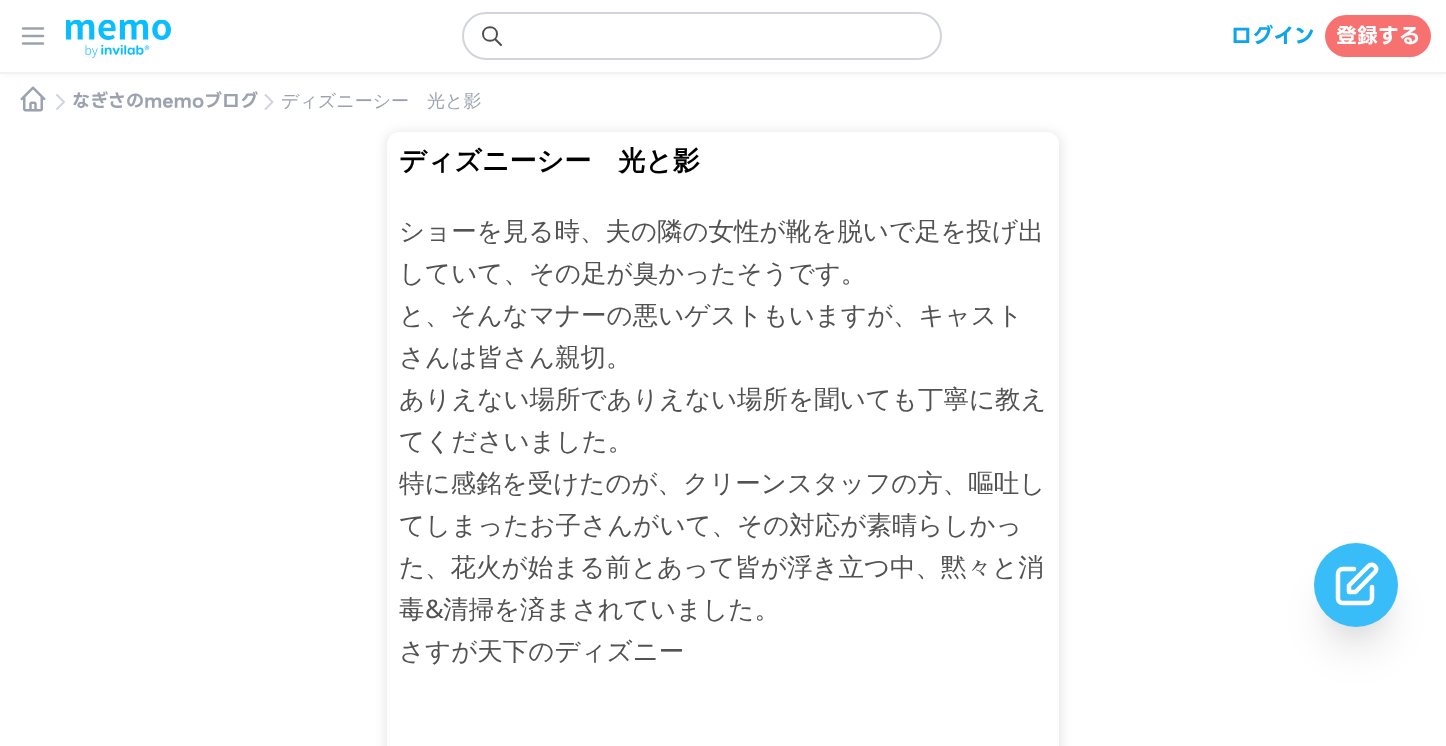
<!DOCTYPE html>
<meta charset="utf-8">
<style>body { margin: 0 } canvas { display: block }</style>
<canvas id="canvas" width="1446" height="746"></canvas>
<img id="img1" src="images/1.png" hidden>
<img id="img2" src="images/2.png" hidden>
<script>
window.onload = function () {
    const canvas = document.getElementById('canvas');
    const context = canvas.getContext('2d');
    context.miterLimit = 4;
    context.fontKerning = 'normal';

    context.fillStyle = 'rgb(255, 255, 255)';
    context.fillRect(0, 0, 1446, 746);
    context.fillStyle = 'rgba(0, 0, 0, 0.05)';
    context.filter = 'blur(3px)';
    context.beginPath();
    context.rect(2, 3, 1443, 71);
    context.fill();
    context.filter = 'none';
    context.fillStyle = 'rgb(255, 255, 255)';
    context.fillRect(0, 0, 1446, 72);
    context.fillStyle = 'rgb(241, 242, 244)';
    context.fillRect(0, 72, 1446, 2);
    context.beginPath();
    context.moveTo(23, 28.5);
    context.lineTo(43, 28.5);
    context.moveTo(23, 36);
    context.lineTo(43, 36);
    context.moveTo(23, 43.5);
    context.lineTo(43, 43.5);
    context.strokeStyle = 'rgb(156, 163, 175)';
    context.lineWidth = 2.5;
    context.lineCap = 'round';
    context.lineJoin = 'round';
    context.stroke();
    context.drawImage(document.getElementById('img1'), 66, 20, 105, 38);
    context.beginPath();
    context.roundRect(463, 13, 478, 46, 23);
    context.strokeStyle = 'rgb(209, 213, 219)';
    context.lineWidth = 2;
    context.lineJoin = 'miter';
    context.stroke();
    context.beginPath();
    context.moveTo(501, 45);
    context.lineTo(495, 39);
    context.moveTo(497, 34);
    context.bezierCurveTo(497, 43, 483, 43, 483, 34);
    context.bezierCurveTo(483, 25, 497, 25, 497, 34);
    context.closePath();
    context.strokeStyle = 'rgb(77, 77, 77)';
    context.lineJoin = 'round';
    context.stroke();
    context.fillStyle = 'rgb(248, 113, 113)';
    context.beginPath();
    context.roundRect(1325, 15, 106, 42, 21);
    context.fill();
    context.drawImage(document.getElementById('img2'), 20, 86, 26, 26);
    context.beginPath();
    context.moveTo(57, 95);
    context.lineTo(64, 102);
    context.lineTo(57, 109);
    context.strokeStyle = 'rgb(209, 213, 219)';
    context.stroke();
    context.beginPath();
    context.moveTo(265.5, 95);
    context.lineTo(272.5, 102);
    context.lineTo(265.5, 109);
    context.stroke();
    context.fillStyle = 'rgba(0, 0, 0, 0.1)';
    context.filter = 'blur(6px)';
    context.beginPath();
    context.roundRect(386, 132, 675, 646, 14);
    context.fill();
    context.filter = 'none';
    context.fillStyle = 'rgb(255, 255, 255)';
    context.beginPath();
    context.moveTo(399, 132);
    context.lineTo(1047, 132);
    context.bezierCurveTo(1053.5, 132, 1059, 137.5, 1059, 144);
    context.lineTo(1059, 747);
    context.lineTo(387, 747);
    context.lineTo(387, 144);
    context.bezierCurveTo(387, 137.5, 392.5, 132, 399, 132);
    context.closePath();
    context.fill();
    context.fillStyle = 'rgba(0, 0, 0, 0.04)';
    context.filter = 'blur(7.5px)';
    context.beginPath();
    context.roundRect(1322, 566, 69, 69, 34.5);
    context.fill();
    context.filter = 'none';
    context.fillStyle = 'rgba(0, 0, 0, 0.1)';
    context.filter = 'blur(19px)';
    context.beginPath();
    context.roundRect(1322, 581, 69, 69, 34.5);
    context.fill();
    context.filter = 'none';
    context.fillStyle = 'rgb(56, 189, 248)';
    context.beginPath();
    context.arc(1356, 585, 42, 0, 2 * Math.PI);
    context.fill();
    context.beginPath();
    context.moveTo(1354, 569);
    context.lineTo(1342.5, 569);
    context.bezierCurveTo(1340, 569, 1338, 571.5, 1338, 574);
    context.lineTo(1338, 598.5);
    context.bezierCurveTo(1338, 601, 1340, 603, 1342.5, 603);
    context.lineTo(1367, 603);
    context.bezierCurveTo(1369.5, 603, 1372, 601, 1372, 598.5);
    context.lineTo(1372, 587);
    context.moveTo(1368.5, 566);
    context.bezierCurveTo(1372, 562.5, 1378.5, 567, 1375.5, 571.5);
    context.lineTo(1355.5, 592);
    context.lineTo(1349, 592);
    context.lineTo(1349, 585.5);
    context.closePath();
    context.strokeStyle = 'rgb(255, 255, 255)';
    context.lineWidth = 4.5;
    context.stroke();
    context.font = 'bold 21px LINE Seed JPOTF';
    context.fillStyle = 'rgb(14, 165, 233)';
    context.fillText('ログイン', 1231, 43);
    context.fillStyle = 'rgb(255, 255, 255)';
    context.fillText('登録する', 1336, 43);
    context.font = 'bold 18px LINE Seed JPOTF';
    context.fillStyle = 'rgb(156, 163, 175)';
    context.fillText('なぎさのmemoブログ', 72, 107);
    context.font = '500 18px WenQuanYi Zen Hei';
    context.fillText('ディズニーシー　光と影', 281, 107);
    context.font = 'bold 27px WenQuanYi Zen Hei';
    context.fillStyle = 'rgb(0, 0, 0)';
    context.fillText('ディズニーシー　光と影', 399, 170);
    context.font = '500 25.5px WenQuanYi Zen Hei';
    context.fillStyle = 'rgb(82, 82, 82)';
    context.fillText('ショーを見る時、夫の隣の女性が靴を脱いで足を投げ出', 399, 240);
    context.fillText('していて、その足が臭かったそうです。', 399, 282);
    context.fillText('と、そんなマナーの悪いゲストもいますが、キャスト', 399, 324);
    context.fillText('さんは皆さん親切。', 399, 366);
    context.fillText('ありえない場所でありえない場所を聞いても丁寧に教え', 399, 408);
    context.fillText('てくださいました。', 399, 450);
    context.fillText('特に感銘を受けたのが、クリーンスタッフの方、嘔吐し', 399, 492);
    context.fillText('てしまったお子さんがいて、その対応が素晴らしかっ', 399, 534);
    context.fillText('た、花火が始まる前とあって皆が浮き立つ中、黙々と消', 399, 576);
    context.fillText('毒', 399, 618);
    context.font = '25.5px Noto Sans';
    context.fillText('&', 425, 618);
    context.font = '500 25.5px WenQuanYi Zen Hei';
    context.fillText('清掃を済まされていました。', 443, 618);
    context.fillText('さすが天下のディズニー', 399, 660);
};
</script>
